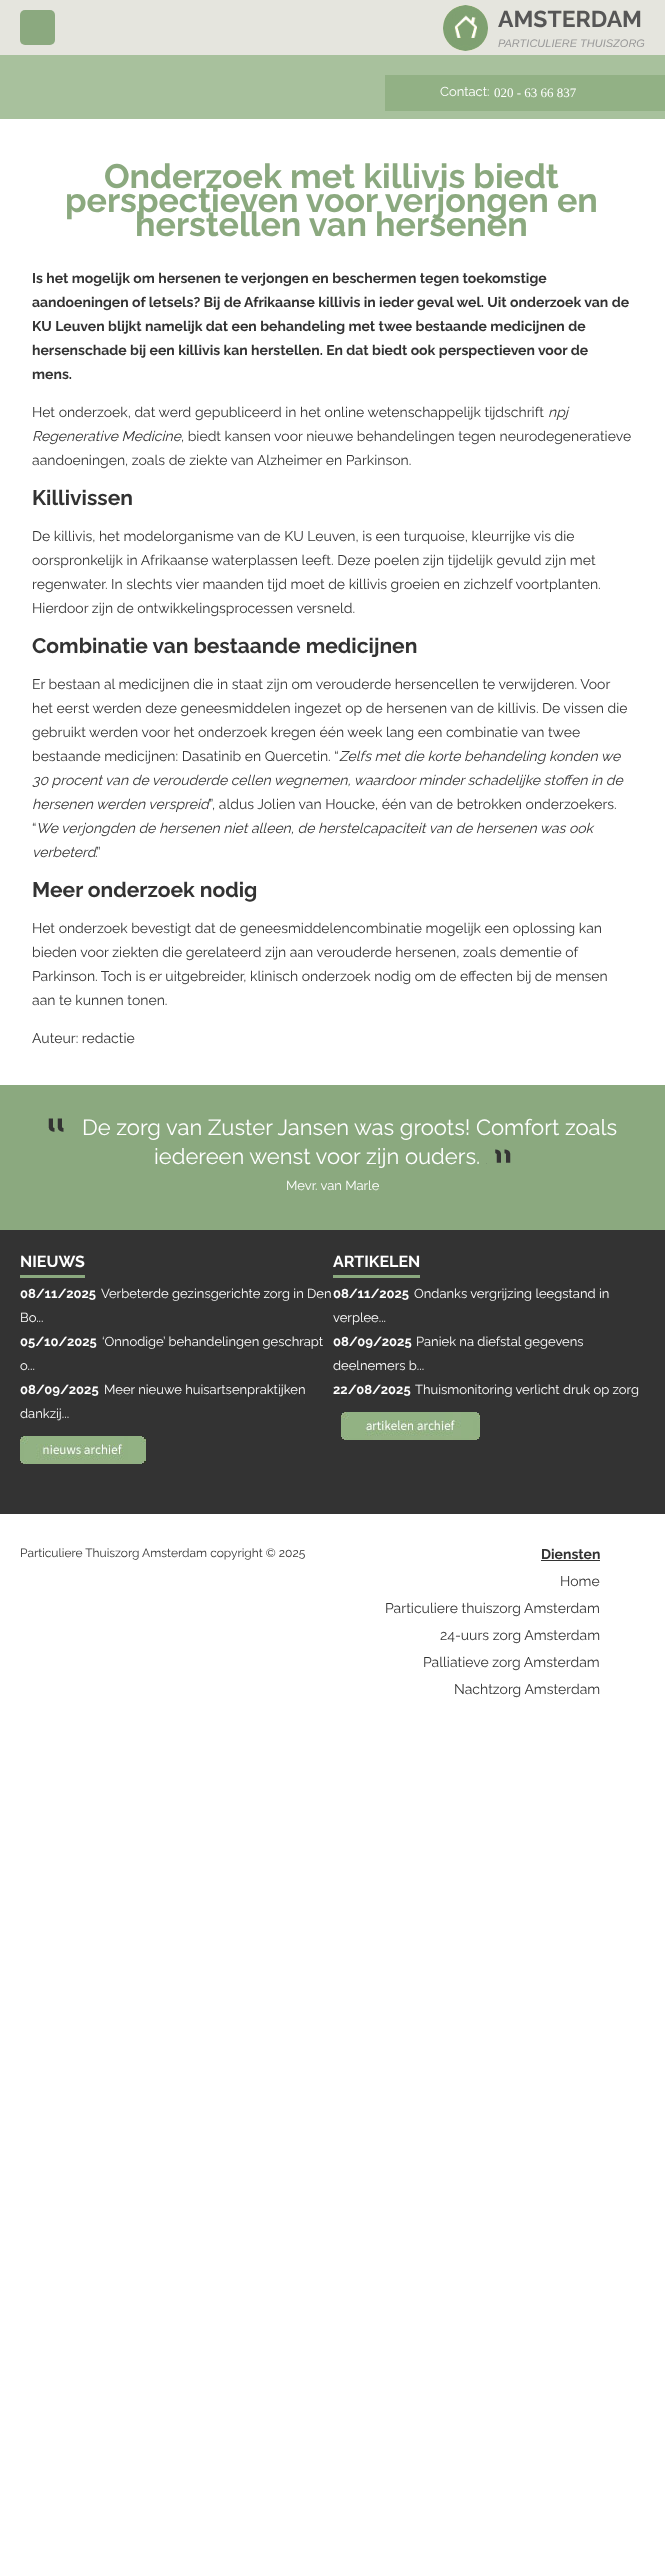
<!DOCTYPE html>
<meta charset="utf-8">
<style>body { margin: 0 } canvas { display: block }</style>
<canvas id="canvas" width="665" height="2549"></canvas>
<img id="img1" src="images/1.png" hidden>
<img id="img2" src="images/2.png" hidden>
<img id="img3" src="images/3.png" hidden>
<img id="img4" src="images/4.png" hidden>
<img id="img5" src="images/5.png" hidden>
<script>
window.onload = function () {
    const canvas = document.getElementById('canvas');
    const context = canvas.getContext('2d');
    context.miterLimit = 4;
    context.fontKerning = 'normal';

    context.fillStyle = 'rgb(255, 255, 255)';
    context.fillRect(0, 0, 665, 2549);
    context.fillStyle = 'rgb(229, 229, 222)';
    context.fillRect(0, 0, 665, 55);
    context.fillStyle = 'rgb(139, 169, 127)';
    context.beginPath();
    context.roundRect(20, 10, 35, 35, 5);
    context.fill();
    context.drawImage(document.getElementById('img1'), 443, 5, 45, 46);
    context.fillStyle = 'rgb(168, 193, 157)';
    context.fillRect(0, 55, 665, 64);
    context.fillStyle = 'rgb(146, 177, 133)';
    context.fillRect(385, 75, 280, 36);
    context.fillStyle = 'rgb(139, 169, 127)';
    context.fillRect(0, 1085, 665, 145);
    context.drawImage(document.getElementById('img2'), 48, 1118, 16, 14);
    context.drawImage(document.getElementById('img3'), 486, 1149, 25, 15);
    context.fillStyle = 'rgb(51, 51, 51)';
    context.fillRect(0, 1230, 665, 284);
    context.fillStyle = 'rgb(139, 169, 127)';
    context.fillRect(20, 1275, 65, 3);
    context.drawImage(document.getElementById('img4'), 20, 1436, 126, 28);
    context.fillRect(333, 1275, 87, 3);
    context.drawImage(document.getElementById('img5'), 341, 1412, 139, 28);
    context.fillStyle = 'rgb(51, 51, 51)';
    context.fillRect(541, 1560, 59, 1);
    context.font = 'bold 23px Raleway';
    context.fillStyle = 'rgb(86, 86, 86)';
    context.fillText('AMSTERDAM', 498, 27);
    context.font = 'italic 11px Liberation Sans';
    context.fillStyle = 'rgb(153, 153, 153)';
    context.fillText('PARTICULIERE THUISZORG', 498, 47);
    context.font = '13px Raleway';
    context.fillStyle = 'rgb(255, 255, 255)';
    context.fillText('Contact:', 440, 96);
    context.font = '13px Liberation Serif';
    context.fillText('020 - 63 66 837', 494, 97);
    context.font = 'bold 34px Raleway';
    context.fillStyle = 'rgb(139, 169, 127)';
    context.fillText('Onderzoek met killivis biedt', 104, 188);
    context.fillText('perspectieven voor verjongen en', 65, 212);
    context.fillText('herstellen van hersenen', 135, 236);
    context.font = 'bold 14px Raleway';
    context.fillStyle = 'rgb(51, 51, 51)';
    context.fillText('Is het mogelijk om hersenen te verjongen en beschermen tegen toekomstige', 32, 283);
    context.fillText('aandoeningen of letsels? Bij de Afrikaanse killivis in ieder geval wel. Uit onderzoek van de', 32, 307);
    context.fillText('KU Leuven blijkt namelijk dat een behandeling met twee bestaande medicijnen de', 32, 331);
    context.fillText('hersenschade bij een killivis kan herstellen. En dat biedt ook perspectieven voor de', 32, 355);
    context.fillText('mens.', 32, 379);
    context.font = '14px Raleway';
    context.fillText('Het onderzoek, dat werd gepubliceerd in het online wetenschappelijk tijdschrift', 32, 417);
    context.font = 'italic 14px Raleway';
    context.fillText('npj', 548, 417);
    context.fillText('Regenerative Medicine', 32, 441);
    context.font = '14px Raleway';
    context.fillText(', biedt kansen voor nieuwe behandelingen tegen neurodegeneratieve', 181, 441);
    context.fillText('aandoeningen, zoals de ziekte van Alzheimer en Parkinson.', 32, 465);
    context.font = 'bold 21px Raleway';
    context.fillText('Killivissen', 32, 505);
    context.font = '14px Raleway';
    context.fillText('De killivis, het modelorganisme van de KU Leuven, is een turquoise, kleurrijke vis die', 32, 541);
    context.fillText('oorspronkelijk in Afrikaanse waterplassen leeft. Deze poelen zijn tijdelijk gevuld zijn met', 32, 565);
    context.fillText('regenwater. In slechts vier maanden tijd moet de killivis groeien en zichzelf voortplanten.', 32, 589);
    context.fillText('Hierdoor zijn de ontwikkelingsprocessen versneld.', 32, 613);
    context.font = 'bold 21px Raleway';
    context.fillText('Combinatie van bestaande medicijnen', 32, 653);
    context.font = '14px Raleway';
    context.fillText('Er bestaan al medicijnen die in staat zijn om verouderde hersencellen te verwijderen. Voor', 32, 689);
    context.fillText('het eerst werden deze geneesmiddelen ingezet op de hersenen van de killivis. De vissen die', 32, 713);
    context.fillText('gebruikt werden voor het onderzoek kregen één week lang een combinatie van twee', 32, 737);
    context.fillText('bestaande medicijnen: Dasatinib en Quercetin. “', 32, 761);
    context.font = 'italic 14px Raleway';
    context.fillText('Zelfs met die korte behandeling konden we', 339, 761);
    context.fillText('30 procent van de verouderde cellen wegnemen, waardoor minder schadelijke stoffen in de', 32, 785);
    context.fillText('hersenen werden verspreid', 32, 809);
    context.font = '14px Raleway';
    context.fillText('”, aldus Jolien van Houcke, één van de betrokken onderzoekers.', 209, 809);
    context.fillText('“', 32, 833);
    context.font = 'italic 14px Raleway';
    context.fillText('We verjongden de hersenen niet alleen, de herstelcapaciteit van de hersenen was ook', 36, 833);
    context.fillText('verbeterd', 32, 857);
    context.font = '14px Raleway';
    context.fillText('.”', 95, 857);
    context.font = 'bold 21px Raleway';
    context.fillText('Meer onderzoek nodig', 32, 897);
    context.font = '14px Raleway';
    context.fillText('Het onderzoek bevestigt dat de geneesmiddelencombinatie mogelijk een oplossing kan', 32, 933);
    context.fillText('bieden voor ziekten die gerelateerd zijn aan verouderde hersenen, zoals dementie of', 32, 957);
    context.fillText('Parkinson. Toch is er uitgebreider, klinisch onderzoek nodig om de effecten bij de mensen', 32, 981);
    context.fillText('aan te kunnen tonen.', 32, 1005);
    context.fillText('Auteur: redactie', 32, 1043);
    context.font = '22px Raleway';
    context.fillStyle = 'rgb(255, 255, 255)';
    context.fillText('De zorg van Zuster Jansen was groots! Comfort zoals', 82, 1135);
    context.fillText('iedereen wenst voor zijn ouders.', 154, 1164);
    context.font = '13px Raleway';
    context.fillText('Mevr. van Marle', 286, 1190);
    context.font = 'bold 16px Raleway';
    context.fillText('NIEUWS', 20, 1267);
    context.font = 'bold 13px Raleway';
    context.fillText('08/11/2025', 20, 1298);
    context.font = '13px Raleway';
    context.fillText('Verbeterde gezinsgerichte zorg in Den', 101, 1298);
    context.fillText('Bo...', 20, 1322);
    context.font = 'bold 13px Raleway';
    context.fillText('05/10/2025', 20, 1346);
    context.font = '13px Raleway';
    context.fillText('‘Onnodige’ behandelingen geschrapt', 102, 1346);
    context.fillText('o...', 20, 1370);
    context.font = 'bold 13px Raleway';
    context.fillText('08/09/2025', 20, 1394);
    context.font = '13px Raleway';
    context.fillText('Meer nieuwe huisartsenpraktijken', 104, 1394);
    context.fillText('dankzij...', 20, 1418);
    context.font = 'bold 16px Raleway';
    context.fillText('ARTIKELEN', 333, 1267);
    context.font = 'bold 13px Raleway';
    context.fillText('08/11/2025', 333, 1298);
    context.font = '13px Raleway';
    context.fillText('Ondanks vergrijzing leegstand in', 414, 1298);
    context.fillText('verplee...', 333, 1322);
    context.font = 'bold 13px Raleway';
    context.fillText('08/09/2025', 333, 1346);
    context.font = '13px Raleway';
    context.fillText('Paniek na diefstal gegevens', 416, 1346);
    context.fillText('deelnemers b...', 333, 1370);
    context.font = 'bold 13px Raleway';
    context.fillText('22/08/2025', 333, 1394);
    context.font = '13px Raleway';
    context.fillText('Thuismonitoring verlicht druk op zorg', 415, 1394);
    context.font = '12px Raleway';
    context.fillStyle = 'rgb(51, 51, 51)';
    context.fillText('Particuliere Thuiszorg Amsterdam copyright © 2025', 20, 1557);
    context.font = 'bold 14px Raleway';
    context.fillText('Diensten', 541, 1559);
    context.font = '14px Raleway';
    context.fillText('Home', 560, 1586);
    context.fillText('Particuliere thuiszorg Amsterdam', 385, 1613);
    context.fillText('24-uurs zorg Amsterdam', 440, 1640);
    context.fillText('Palliatieve zorg Amsterdam', 423, 1667);
    context.fillText('Nachtzorg Amsterdam', 454, 1694);
};
</script>
